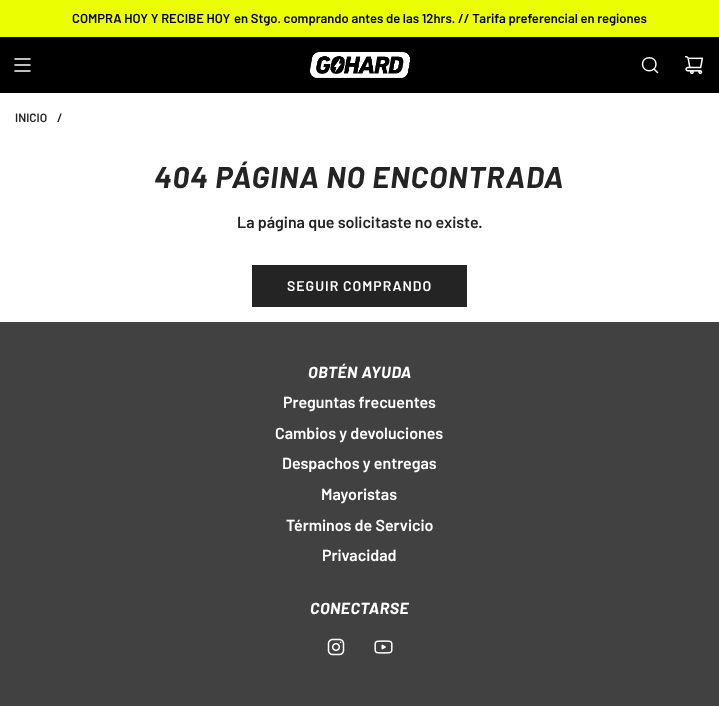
<!DOCTYPE html>
<meta charset="utf-8">
<style>body { margin: 0 } canvas { display: block }</style>
<canvas id="canvas" width="719" height="706"></canvas>
<img id="img1" src="images/1.png" hidden>
<img id="img2" src="images/2.png" hidden>
<img id="img3" src="images/3.png" hidden>
<img id="img4" src="images/4.png" hidden>
<script>
window.onload = function () {
    const canvas = document.getElementById('canvas');
    const context = canvas.getContext('2d');
    context.miterLimit = 4;
    context.fontKerning = 'normal';

    context.fillStyle = 'rgb(255, 255, 255)';
    context.fillRect(0, 0, 719, 706);
    context.fillStyle = 'rgb(236, 255, 2)';
    context.fillRect(0, 0, 719, 37);
    context.fillStyle = 'rgb(0, 0, 0)';
    context.fillRect(0, 37, 719, 56);
    context.beginPath();
    context.moveTo(15, 59);
    context.lineTo(30, 59);
    context.moveTo(15, 65);
    context.lineTo(30, 65);
    context.moveTo(15, 71);
    context.lineTo(30, 71);
    context.strokeStyle = 'rgb(255, 255, 255)';
    context.lineWidth = 1.5;
    context.lineCap = 'round';
    context.lineJoin = 'round';
    context.stroke();
    context.drawImage(document.getElementById('img1'), 309, 51, 101, 27);
    context.beginPath();
    context.moveTo(654, 69);
    context.lineTo(657.5, 72.5);
    context.moveTo(642.5, 64);
    context.bezierCurveTo(642.5, 73, 656, 73, 656, 64);
    context.bezierCurveTo(656, 55.5, 642.5, 55.5, 642.5, 64);
    context.closePath();
    context.stroke();
    context.drawImage(document.getElementById('img2'), 684, 55, 20, 20);
    context.fillStyle = 'rgb(36, 36, 36)';
    context.fillRect(252, 265, 215, 42);
    context.fillStyle = 'rgb(65, 65, 65)';
    context.fillRect(0, 322, 719, 384);
    context.drawImage(document.getElementById('img3'), 327, 638, 18, 18);
    context.drawImage(document.getElementById('img4'), 374, 640, 19, 14);
    context.font = '600 13px Barlow';
    context.fillStyle = 'rgb(0, 0, 0)';
    context.fillText('COMPRA HOY Y RECIBE HOY', 72, 23);
    context.fillText('en Stgo. comprando antes de las 12hrs. // Tarifa preferencial en regiones', 234, 23);
    context.font = '600 12px Barlow';
    context.fillStyle = 'rgb(36, 36, 36)';
    context.fillText('INICIO', 15, 122);
    context.fillText('/', 57, 122);
    context.letterSpacing = '0.9px';
    context.font = 'italic bold 30px Barlow';
    context.fillText('404 PÁGINA NO ENCONTRADA', 154, 188);
    context.letterSpacing = '0px';
    context.font = '600 16px Barlow';
    context.fillText('La página que solicitaste no existe.', 237, 228);
    context.letterSpacing = '1px';
    context.font = '600 14px Barlow';
    context.fillStyle = 'rgb(255, 255, 255)';
    context.fillText('SEGUIR COMPRANDO', 287, 291);
    context.letterSpacing = '0.5px';
    context.font = 'italic bold 16px Barlow';
    context.fillText('OBTÉN AYUDA', 308, 378);
    context.letterSpacing = '0px';
    context.font = '600 16px Barlow';
    context.fillText('Preguntas frecuentes', 283, 408);
    context.fillText('Cambios y devoluciones', 275, 439);
    context.fillText('Despachos y entregas', 282, 469);
    context.fillText('Mayoristas', 321, 500);
    context.fillText('Términos de Servicio', 286, 531);
    context.fillText('Privacidad', 322, 561);
    context.letterSpacing = '0.5px';
    context.font = 'italic bold 16px Barlow';
    context.fillText('CONECTARSE', 310, 614);
};
</script>
